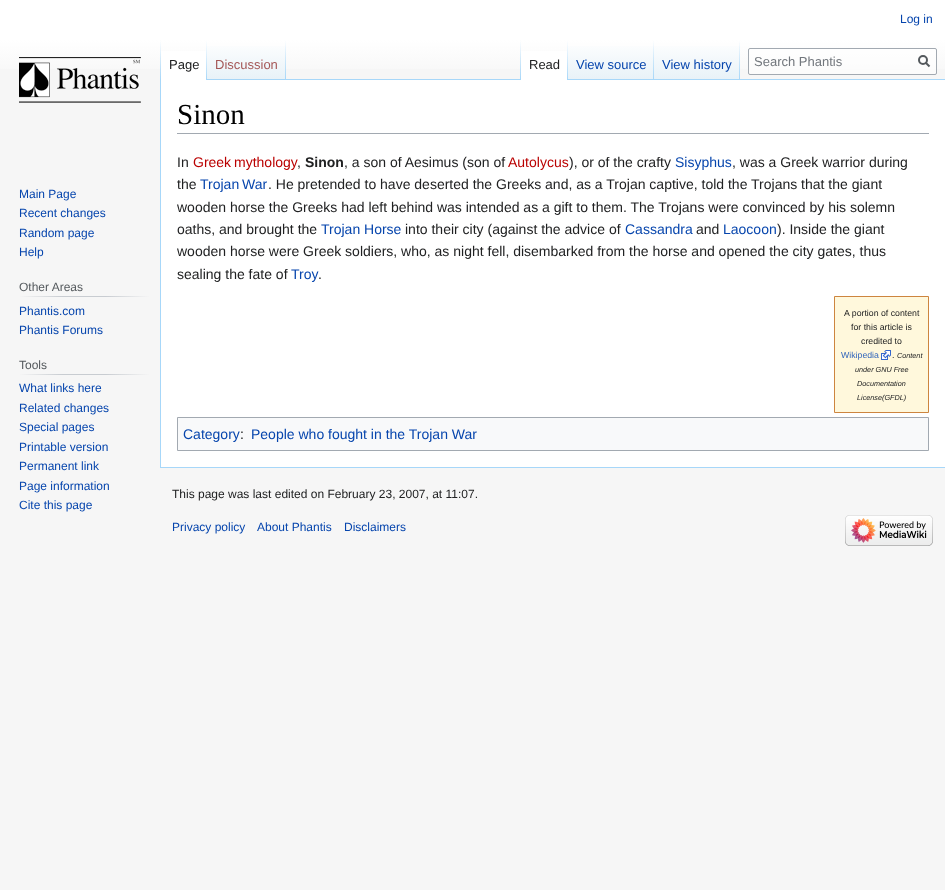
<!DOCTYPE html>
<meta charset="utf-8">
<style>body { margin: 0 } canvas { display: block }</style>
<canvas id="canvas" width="945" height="890"></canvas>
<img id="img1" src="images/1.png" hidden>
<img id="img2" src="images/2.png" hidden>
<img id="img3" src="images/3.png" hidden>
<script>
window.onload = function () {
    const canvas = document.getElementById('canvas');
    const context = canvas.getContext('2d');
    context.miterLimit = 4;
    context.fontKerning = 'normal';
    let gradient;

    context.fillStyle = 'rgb(246, 246, 246)';
    context.fillRect(0, 0, 945, 890);
    gradient = context.createLinearGradient(473, 0, 473, 80);
    gradient.addColorStop(0.5, 'rgb(255, 255, 255)');
    gradient.addColorStop(1, 'rgb(246, 246, 246)');
    context.fillStyle = gradient;
    context.fillRect(0, 0, 945, 69);
    context.fillStyle = 'rgb(167, 215, 249)';
    context.fillRect(160, 467, 785, 1);
    context.fillRect(160, 79, 1, 389);
    gradient = context.createLinearGradient(161, 40, 161, 80);
    gradient.addColorStop(0, 'rgba(167, 215, 249, 0)');
    gradient.addColorStop(1, 'rgb(167, 215, 249)');
    context.fillStyle = gradient;
    context.fillRect(160, 40, 1, 40);
    context.fillStyle = 'rgb(255, 255, 255)';
    context.fillRect(161, 51, 45, 29);
    gradient = context.createLinearGradient(207, 40, 207, 80);
    gradient.addColorStop(0, 'rgb(255, 255, 255)');
    gradient.addColorStop(1, 'rgb(167, 215, 249)');
    context.fillStyle = gradient;
    context.fillRect(206, 40, 1, 40);
    gradient = context.createLinearGradient(247, 80, 247, 40);
    gradient.addColorStop(0, 'rgb(119, 193, 246)');
    gradient.addColorStop(0.03, 'rgb(232, 242, 248)');
    gradient.addColorStop(1, 'rgb(255, 255, 255)');
    context.fillStyle = gradient;
    context.fillRect(207, 46, 79, 34);
    gradient = context.createLinearGradient(286, 40, 286, 80);
    gradient.addColorStop(0, 'rgba(167, 215, 249, 0)');
    gradient.addColorStop(1, 'rgb(167, 215, 249)');
    context.fillStyle = gradient;
    context.fillRect(285, 40, 1, 40);
    context.fillStyle = 'rgb(167, 215, 249)';
    context.fillRect(286, 79, 659, 1);
    gradient = context.createLinearGradient(521, 40, 521, 80);
    gradient.addColorStop(0, 'rgba(167, 215, 249, 0)');
    gradient.addColorStop(1, 'rgb(167, 215, 249)');
    context.fillStyle = gradient;
    context.fillRect(520, 40, 1, 40);
    context.fillStyle = 'rgb(255, 255, 255)';
    context.fillRect(521, 51, 46, 29);
    gradient = context.createLinearGradient(568, 40, 568, 80);
    gradient.addColorStop(0, 'rgb(255, 255, 255)');
    gradient.addColorStop(1, 'rgb(167, 215, 249)');
    context.fillStyle = gradient;
    context.fillRect(567, 40, 1, 40);
    gradient = context.createLinearGradient(611, 80, 611, 40);
    gradient.addColorStop(0, 'rgb(119, 193, 246)');
    gradient.addColorStop(0.03, 'rgb(232, 242, 248)');
    gradient.addColorStop(1, 'rgb(255, 255, 255)');
    context.fillStyle = gradient;
    context.fillRect(568, 46, 86, 33);
    gradient = context.createLinearGradient(654, 40, 654, 80);
    gradient.addColorStop(0, 'rgba(167, 215, 249, 0)');
    gradient.addColorStop(1, 'rgb(167, 215, 249)');
    context.fillStyle = gradient;
    context.fillRect(653, 40, 1, 40);
    gradient = context.createLinearGradient(697, 80, 697, 40);
    gradient.addColorStop(0, 'rgb(119, 193, 246)');
    gradient.addColorStop(0.03, 'rgb(232, 242, 248)');
    gradient.addColorStop(1, 'rgb(255, 255, 255)');
    context.fillStyle = gradient;
    context.fillRect(654, 46, 86, 33);
    gradient = context.createLinearGradient(740, 40, 740, 80);
    gradient.addColorStop(0, 'rgba(167, 215, 249, 0)');
    gradient.addColorStop(1, 'rgb(167, 215, 249)');
    context.fillStyle = gradient;
    context.fillRect(739, 40, 1, 40);
    context.fillStyle = 'rgba(255, 255, 255, 0.5)';
    context.beginPath();
    context.roundRect(748.5, 48.5, 188, 26, 1.5);
    context.fill();
    context.strokeStyle = 'rgb(162, 169, 177)';
    context.stroke();
    context.beginPath();
    context.moveTo(929.5, 66.5);
    context.lineTo(925.5, 62.5);
    context.strokeStyle = 'rgb(84, 89, 93)';
    context.lineWidth = 2;
    context.stroke();
    context.beginPath();
    context.arc(923, 60, 4, 0, 2 * Math.PI);
    context.stroke();
    context.drawImage(document.getElementById('img1'), 19, 57, 122, 46);
    gradient = context.createLinearGradient(19, 297, 150, 297);
    gradient.addColorStop(0, 'rgb(246, 246, 246)');
    gradient.addColorStop(0.33, 'rgb(200, 204, 209)');
    gradient.addColorStop(0.66, 'rgb(200, 204, 209)');
    gradient.addColorStop(1, 'rgb(246, 246, 246)');
    context.fillStyle = gradient;
    context.fillRect(19, 296, 131, 1);
    gradient = context.createLinearGradient(19, 375, 150, 375);
    gradient.addColorStop(0, 'rgb(246, 246, 246)');
    gradient.addColorStop(0.33, 'rgb(200, 204, 209)');
    gradient.addColorStop(0.66, 'rgb(200, 204, 209)');
    gradient.addColorStop(1, 'rgb(246, 246, 246)');
    context.fillStyle = gradient;
    context.fillRect(19, 374, 131, 1);
    context.fillStyle = 'rgb(255, 255, 255)';
    context.fillRect(161, 80, 784, 387);
    context.fillStyle = 'rgb(162, 169, 177)';
    context.fillRect(177, 133, 752, 1);
    context.fillStyle = 'rgb(255, 248, 220)';
    context.beginPath();
    context.rect(834.5, 296.5, 94, 116);
    context.fill();
    context.strokeStyle = 'rgb(205, 133, 63)';
    context.lineWidth = 1;
    context.stroke();
    context.drawImage(document.getElementById('img2'), 881, 350, 10, 10);
    context.fillStyle = 'rgb(248, 249, 250)';
    context.beginPath();
    context.rect(177.5, 417.5, 751, 33);
    context.fill();
    context.strokeStyle = 'rgb(162, 169, 177)';
    context.stroke();
    context.drawImage(document.getElementById('img3'), 845, 515, 88, 31);
    context.font = '12px Liberation Sans';
    context.fillStyle = 'rgb(6, 69, 173)';
    context.fillText('Log in', 900, 23);
    context.font = '13px Liberation Sans';
    context.fillStyle = 'rgb(32, 33, 34)';
    context.fillText('Page', 169, 69);
    context.fillStyle = 'rgb(165, 88, 88)';
    context.fillText('Discussion', 215, 69);
    context.fillStyle = 'rgb(32, 33, 34)';
    context.fillText('Read', 529, 69);
    context.fillStyle = 'rgb(6, 69, 173)';
    context.fillText('View source', 576, 69);
    context.fillText('View history', 662, 69);
    context.fillStyle = 'rgb(114, 119, 125)';
    context.fillText('Search Phantis', 754, 66);
    context.font = '12px Liberation Sans';
    context.fillStyle = 'rgb(6, 69, 173)';
    context.fillText('Main Page', 19, 198);
    context.fillText('Recent changes', 19, 217);
    context.fillText('Random page', 19, 237);
    context.fillText('Help', 19, 256);
    context.fillStyle = 'rgb(84, 89, 93)';
    context.fillText('Other Areas', 19, 291);
    context.fillStyle = 'rgb(6, 69, 173)';
    context.fillText('Phantis.com', 19, 315);
    context.fillText('Phantis Forums', 19, 334);
    context.fillStyle = 'rgb(84, 89, 93)';
    context.fillText('Tools', 19, 369);
    context.fillStyle = 'rgb(6, 69, 173)';
    context.fillText('What links here', 19, 392);
    context.fillText('Related changes', 19, 412);
    context.fillText('Special pages', 19, 431);
    context.fillText('Printable version', 19, 451);
    context.fillText('Permanent link', 19, 470);
    context.fillText('Page information', 19, 490);
    context.fillText('Cite this page', 19, 509);
    context.font = '29px Liberation Serif';
    context.fillStyle = 'rgb(0, 0, 0)';
    context.fillText('Sinon', 177, 124);
    context.font = '14px Liberation Sans';
    context.fillStyle = 'rgb(32, 33, 34)';
    context.fillText('In', 177, 167);
    context.wordSpacing = '-1px';
    context.fillStyle = 'rgb(186, 0, 0)';
    context.fillText('Greek mythology', 193, 167);
    context.wordSpacing = '0px';
    context.fillStyle = 'rgb(32, 33, 34)';
    context.fillText(',', 297, 167);
    context.font = 'bold 14px Liberation Sans';
    context.fillText('Sinon', 305, 167);
    context.font = '14px Liberation Sans';
    context.fillText(', a son of Aesimus (son of', 344, 167);
    context.fillStyle = 'rgb(186, 0, 0)';
    context.fillText('Autolycus', 508, 167);
    context.fillStyle = 'rgb(32, 33, 34)';
    context.fillText('), or of the crafty', 569, 167);
    context.fillStyle = 'rgb(6, 69, 173)';
    context.fillText('Sisyphus', 675, 167);
    context.fillStyle = 'rgb(32, 33, 34)';
    context.fillText(', was a Greek warrior during', 732, 167);
    context.fillText('the', 177, 189);
    context.wordSpacing = '-1px';
    context.fillStyle = 'rgb(6, 69, 173)';
    context.fillText('Trojan War', 200, 189);
    context.wordSpacing = '0px';
    context.fillStyle = 'rgb(32, 33, 34)';
    context.fillText('. He pretended to have deserted the Greeks and, as a Trojan captive, told the Trojans that the giant', 268, 189);
    context.fillText('wooden horse the Greeks had left behind was intended as a gift to them. The Trojans were convinced by his solemn', 177, 212);
    context.fillText('oaths, and brought the', 177, 234);
    context.fillStyle = 'rgb(6, 69, 173)';
    context.fillText('Trojan Horse', 321, 234);
    context.fillStyle = 'rgb(32, 33, 34)';
    context.fillText('into their city (against the advice of', 405, 234);
    context.fillStyle = 'rgb(6, 69, 173)';
    context.fillText('Cassandra', 625, 234);
    context.fillStyle = 'rgb(32, 33, 34)';
    context.fillText('and', 696, 234);
    context.fillStyle = 'rgb(6, 69, 173)';
    context.fillText('Laocoon', 723, 234);
    context.fillStyle = 'rgb(32, 33, 34)';
    context.fillText('). Inside the giant', 777, 234);
    context.fillText('wooden horse were Greek soldiers, who, as night fell, disembarked from the horse and opened the city gates, thus', 177, 256);
    context.fillText('sealing the fate of', 177, 279);
    context.fillStyle = 'rgb(6, 69, 173)';
    context.fillText('Troy', 291, 279);
    context.fillStyle = 'rgb(32, 33, 34)';
    context.fillText('.', 318, 279);
    context.font = '8.75px Liberation Sans';
    context.fillText('A portion of content', 844, 316);
    context.fillText('for this article is', 851, 330);
    context.fillText('credited to', 861, 344);
    context.fillStyle = 'rgb(51, 102, 187)';
    context.fillText('Wikipedia', 841, 358);
    context.fillStyle = 'rgb(32, 33, 34)';
    context.fillText('.', 892, 358);
    context.font = 'italic 7.25px Liberation Sans';
    context.fillText('Content', 897, 358);
    context.fillText('under GNU Free', 855, 372);
    context.fillText('Documentation', 857, 386);
    context.fillText('License(GFDL)', 857, 400);
    context.font = '14px Liberation Sans';
    context.fillStyle = 'rgb(6, 69, 173)';
    context.fillText('Category', 183, 439);
    context.fillStyle = 'rgb(32, 33, 34)';
    context.fillText(':', 240, 439);
    context.fillStyle = 'rgb(6, 69, 173)';
    context.fillText('People who fought in the Trojan War', 251, 439);
    context.font = '12px Liberation Sans';
    context.fillStyle = 'rgb(32, 33, 34)';
    context.fillText('This page was last edited on February 23, 2007, at 11:07.', 172, 498);
    context.fillStyle = 'rgb(6, 69, 173)';
    context.fillText('Privacy policy', 172, 531);
    context.fillText('About Phantis', 257, 531);
    context.fillText('Disclaimers', 344, 531);
};
</script>
